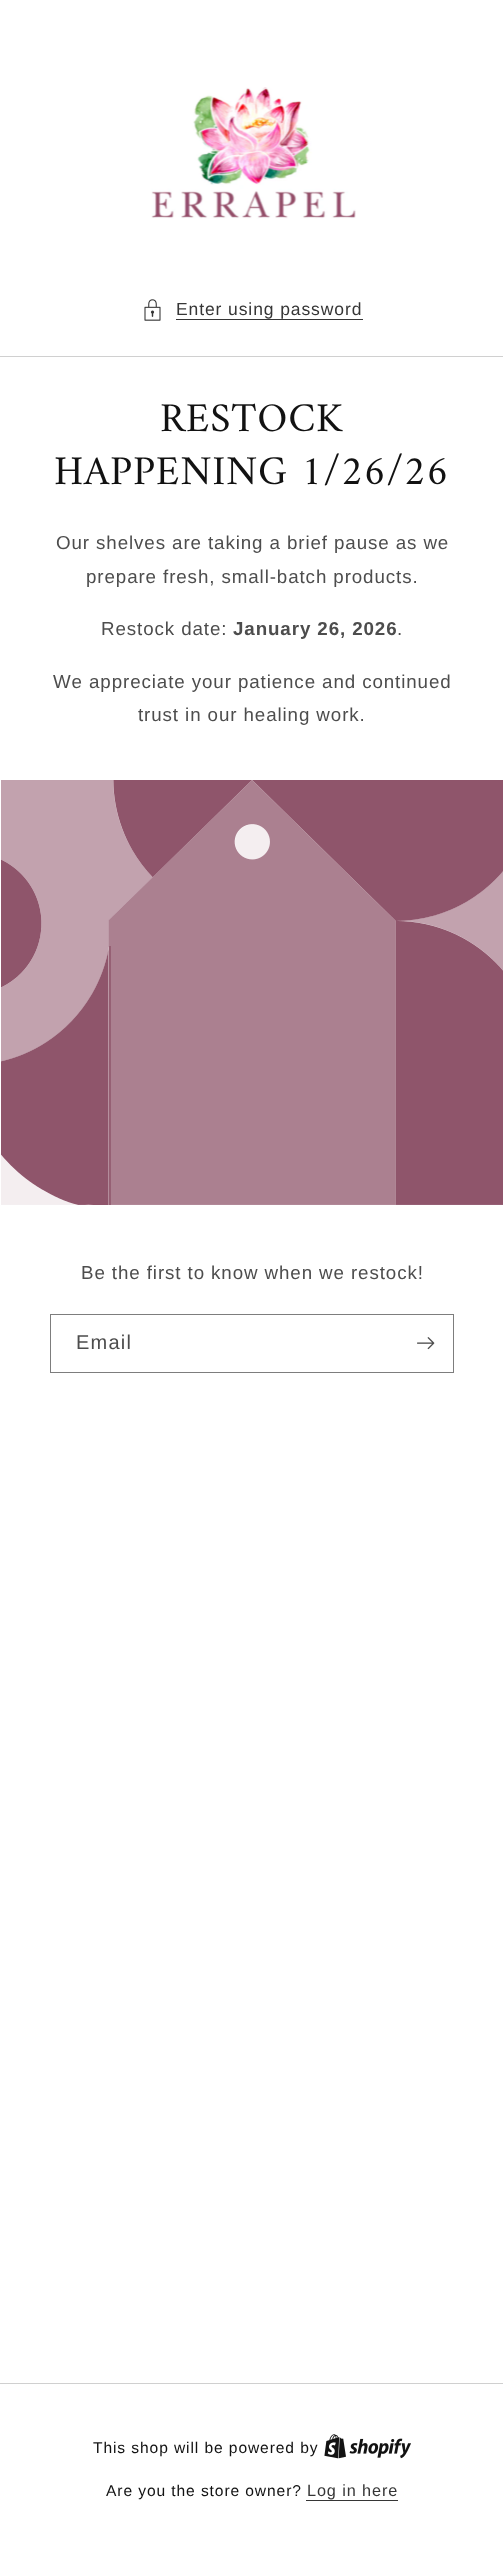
<!DOCTYPE html>
<meta charset="utf-8">
<style>body { margin: 0 } canvas { display: block }</style>
<canvas id="canvas" width="503" height="2554"></canvas>
<img id="img1" src="images/1.png" hidden>
<img id="img2" src="images/2.png" hidden>
<img id="img3" src="images/3.png" hidden>
<img id="img4" src="images/4.png" hidden>
<img id="img5" src="images/5.png" hidden>
<script>
window.onload = function () {
    const canvas = document.getElementById('canvas');
    const context = canvas.getContext('2d');
    context.miterLimit = 4;
    context.fontKerning = 'none';

    context.fillStyle = 'rgb(255, 255, 255)';
    context.fillRect(0, 0, 503, 2554);
    context.drawImage(document.getElementById('img1'), 151, 87, 205, 132);
    context.drawImage(document.getElementById('img2'), 144, 299, 17, 22);
    context.fillStyle = 'rgb(54, 54, 54)';
    context.fillRect(176, 319, 187, 1);
    context.fillStyle = 'rgb(208, 208, 208)';
    context.fillRect(0, 356, 503, 1);
    context.drawImage(document.getElementById('img3'), 1, 780, 502, 425);
    context.strokeStyle = 'rgb(125, 125, 125)';
    context.strokeRect(50.5, 1314.5, 403, 58);
    context.drawImage(document.getElementById('img4'), 417, 1337, 18, 13);
    context.fillRect(0, 2383, 503, 1);
    context.drawImage(document.getElementById('img5'), 324, 2434, 87, 25);
    context.fillStyle = 'rgb(54, 54, 54)';
    context.fillRect(306, 2500, 92, 1);
    context.letterSpacing = '0.9px';
    context.font = '17.5px Arimo';
    context.fillText('Enter using password', 176, 315);
    context.letterSpacing = '0.8px';
    context.font = '41.25px Amiri';
    context.fillStyle = 'rgb(18, 18, 18)';
    context.fillText('RESTOCK', 160, 431);
    context.fillText('HAPPENING 1/26/26', 54, 484);
    context.letterSpacing = '0.9px';
    context.font = '18.75px Arimo';
    context.fillStyle = 'rgb(77, 77, 77)';
    context.fillText('Our shelves are taking a brief pause as we', 56, 549);
    context.fillText('prepare fresh, small-batch products.', 86, 583);
    context.fillText('Restock date:', 101, 635);
    context.font = 'bold 18.75px Arimo';
    context.fillText('January 26, 2026', 233, 635);
    context.font = '18.75px Arimo';
    context.fillText('.', 397, 635);
    context.fillText('We appreciate your patience and continued', 53, 688);
    context.fillText('trust in our healing work.', 138, 721);
    context.fillText('Be the first to know when we restock!', 81, 1279);
    context.letterSpacing = '1.25px';
    context.font = '20px Arimo';
    context.fillText('Email', 76, 1349);
    context.letterSpacing = '0.9px';
    context.font = '15.6px Arimo';
    context.fillStyle = 'rgb(18, 18, 18)';
    context.fillText('This shop will be powered by', 93, 2453);
    context.fillText('Are you the store owner?', 106, 2496);
    context.font = '16.25px Arimo';
    context.fillStyle = 'rgb(54, 54, 54)';
    context.fillText('Log in here', 307, 2496);
};
</script>
